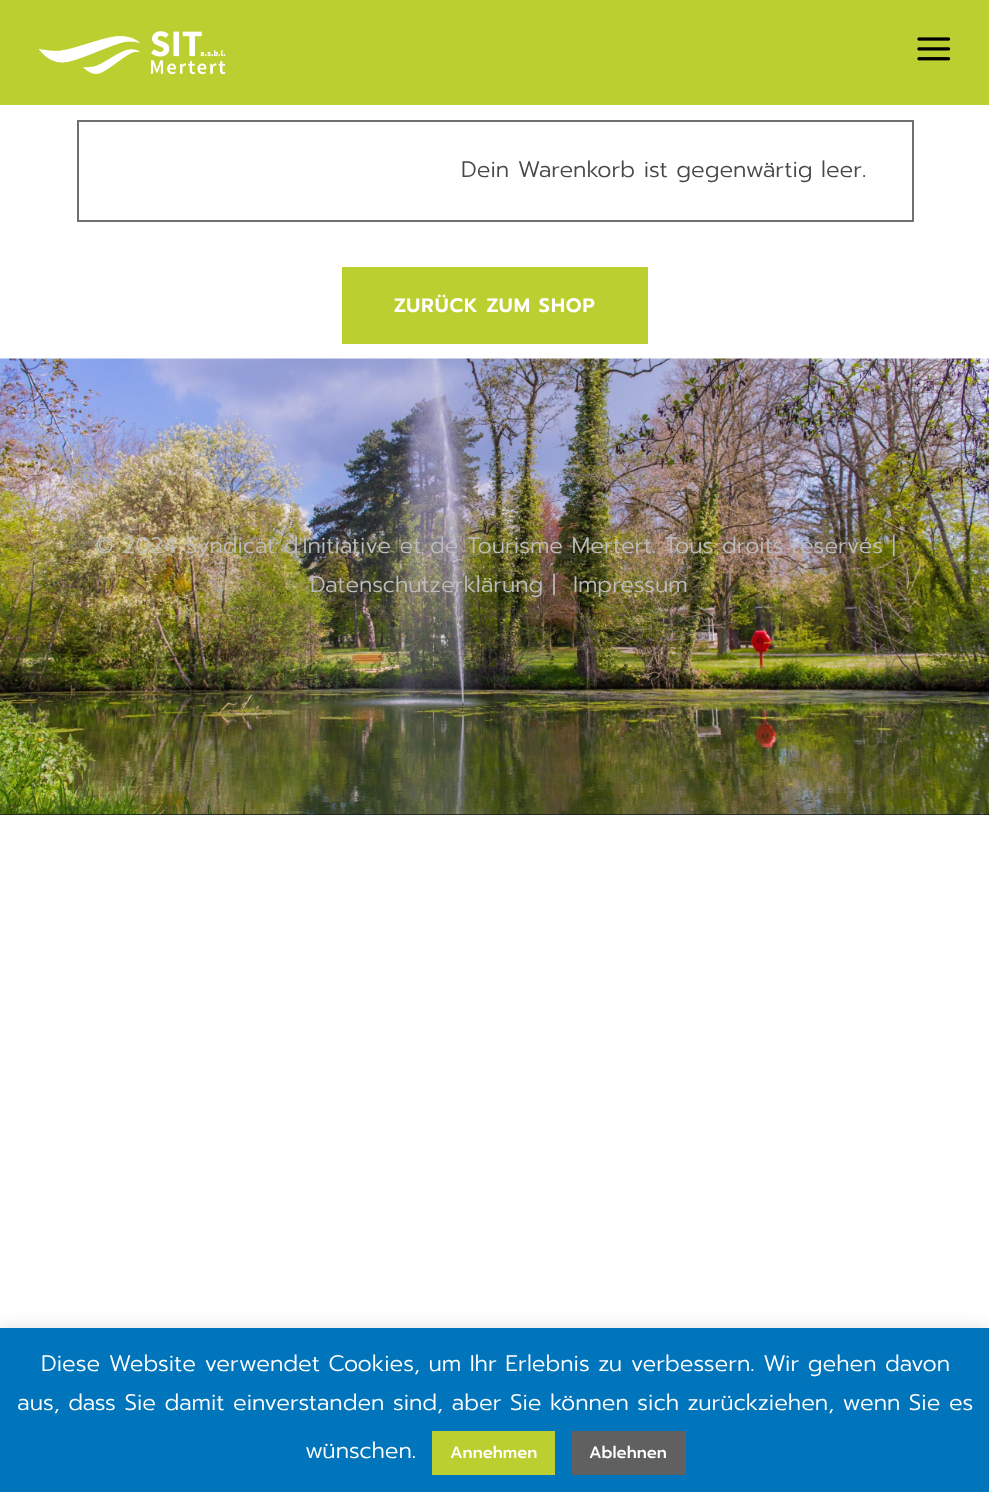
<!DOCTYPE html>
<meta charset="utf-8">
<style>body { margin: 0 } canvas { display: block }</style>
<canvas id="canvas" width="989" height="1492"></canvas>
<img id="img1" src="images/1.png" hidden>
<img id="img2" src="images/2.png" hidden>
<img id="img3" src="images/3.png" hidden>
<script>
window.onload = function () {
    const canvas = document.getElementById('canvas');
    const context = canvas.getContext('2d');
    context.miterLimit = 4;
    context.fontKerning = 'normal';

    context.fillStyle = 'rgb(255, 255, 255)';
    context.fillRect(0, 0, 989, 1492);
    context.fillStyle = 'rgb(188, 207, 48)';
    context.fillRect(0, 0, 989, 105);
    context.drawImage(document.getElementById('img1'), 38, 31, 188, 44);
    context.drawImage(document.getElementById('img2'), 917, 37, 34, 24);
    context.strokeStyle = 'rgb(112, 112, 112)';
    context.lineWidth = 2;
    context.strokeRect(78, 121, 835, 100);
    context.fillRect(342, 267, 306, 77);
    context.fillStyle = 'rgb(28, 35, 31)';
    context.fillRect(0, 814, 989, 1);
    context.drawImage(document.getElementById('img3'), 0, 358, 989, 457);
    context.fillStyle = 'rgba(172, 171, 171, 0.3)';
    context.filter = 'blur(7.5px)';
    context.beginPath();
    context.rect(0, 1326, 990, 165);
    context.fill();
    context.filter = 'none';
    context.fillStyle = 'rgb(0, 117, 188)';
    context.fillRect(0, 1328, 989, 164);
    context.fillStyle = 'rgb(188, 207, 48)';
    context.fillRect(432, 1431, 123, 44);
    context.fillStyle = 'rgb(96, 96, 96)';
    context.fillRect(572, 1431, 114, 44);
    context.font = '300 22.5px Prompt';
    context.fillStyle = 'rgb(72, 72, 72)';
    context.fillText('Dein Warenkorb ist gegenwärtig leer.', 461, 177);
    context.letterSpacing = '1px';
    context.font = '600 19.5px Prompt';
    context.fillStyle = 'rgb(255, 255, 255)';
    context.fillText('ZURÜCK ZUM SHOP', 394, 312);
    context.letterSpacing = '0px';
    context.font = '300 22.5px Prompt';
    context.fillStyle = 'rgb(188, 188, 188)';
    context.fillText('© 2024 Syndicat d\'Initiative et de Tourisme Mertert. Tous droits réservés |', 95, 553);
    context.fillText('Datenschutzerklärung |', 310, 592);
    context.fillText('Impressum', 573, 592);
    context.fillStyle = 'rgb(255, 255, 255)';
    context.fillText('Diese Website verwendet Cookies, um Ihr Erlebnis zu verbessern. Wir gehen davon', 41, 1371);
    context.fillText('aus, dass Sie damit einverstanden sind, aber Sie können sich zurückziehen, wenn Sie es', 17, 1410);
    context.fillText('wünschen.', 305, 1458);
    context.font = '500 16.5px Prompt';
    context.fillText('Annehmen', 450, 1458);
    context.fillText('Ablehnen', 589, 1458);
};
</script>
